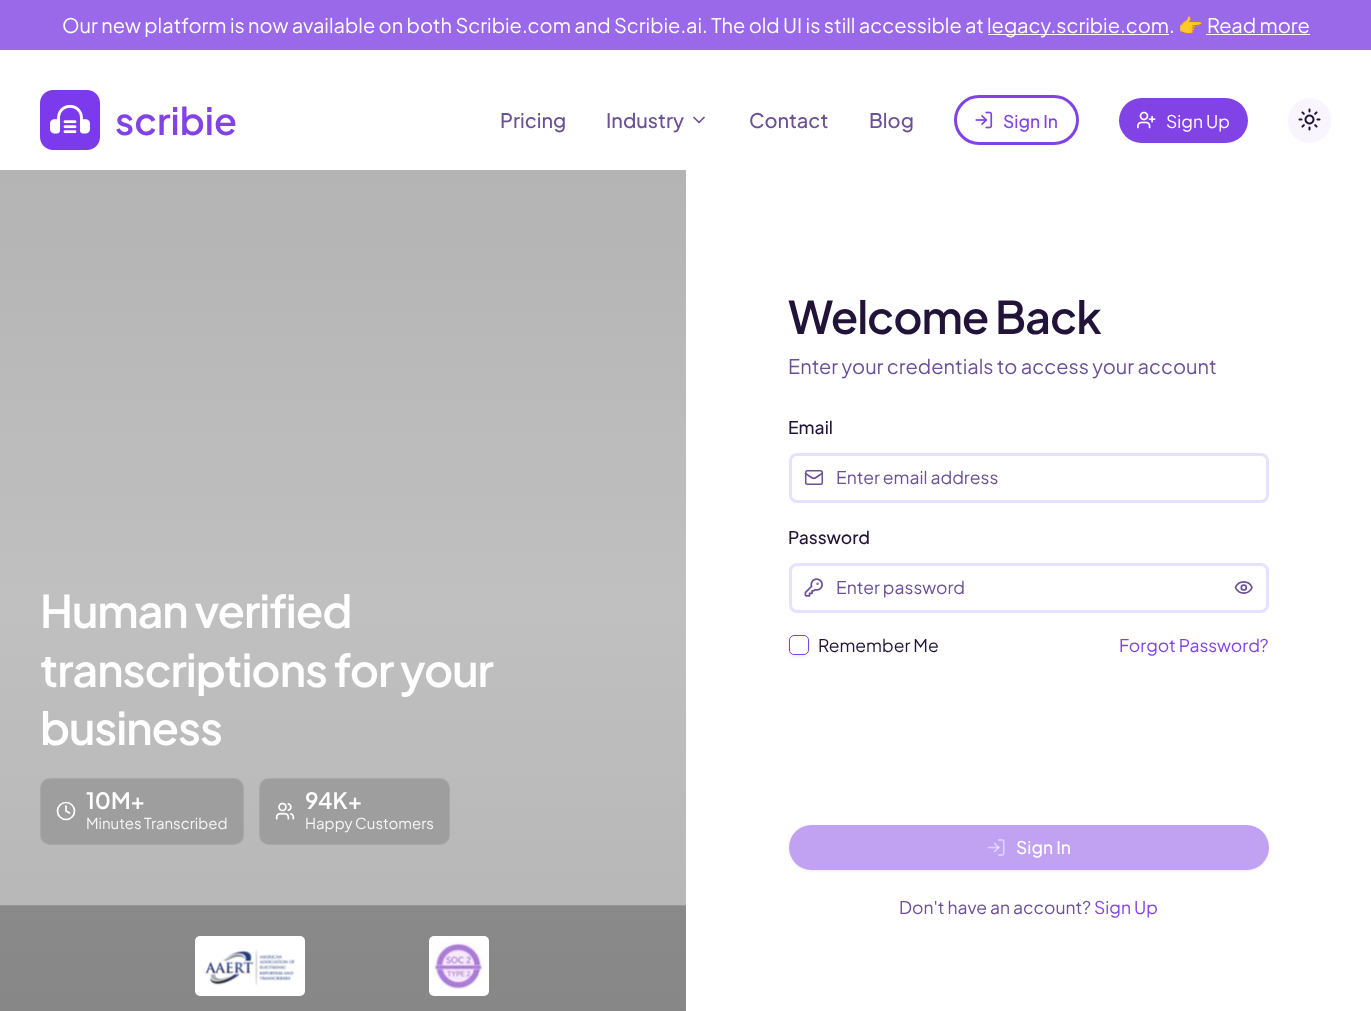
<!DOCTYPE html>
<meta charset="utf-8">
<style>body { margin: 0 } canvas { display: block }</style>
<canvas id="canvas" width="1371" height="1011"></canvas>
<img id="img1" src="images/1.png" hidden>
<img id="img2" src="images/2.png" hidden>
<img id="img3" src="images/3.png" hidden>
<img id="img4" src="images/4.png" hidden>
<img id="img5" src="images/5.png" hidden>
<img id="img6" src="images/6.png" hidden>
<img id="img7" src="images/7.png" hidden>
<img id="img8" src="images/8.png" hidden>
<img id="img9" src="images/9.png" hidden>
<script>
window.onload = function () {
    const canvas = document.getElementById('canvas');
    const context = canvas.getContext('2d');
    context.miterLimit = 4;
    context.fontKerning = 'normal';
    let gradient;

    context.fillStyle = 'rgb(255, 255, 255)';
    context.fillRect(0, 0, 1371, 1011);
    context.fillStyle = 'rgb(154, 105, 234)';
    context.fillRect(0, 0, 1371, 50);
    context.fillStyle = 'rgb(255, 255, 255)';
    context.fillRect(988, 34, 181, 1);
    context.fillRect(1206, 34, 104, 1);
    context.drawImage(document.getElementById('img1'), 40, 90, 60, 60);
    context.beginPath();
    context.moveTo(694, 117.5);
    context.lineTo(699, 122.5);
    context.lineTo(704, 117.5);
    context.strokeStyle = 'rgb(107, 80, 149)';
    context.lineWidth = 1.7;
    context.lineCap = 'round';
    context.lineJoin = 'round';
    context.stroke();
    context.beginPath();
    context.roundRect(955.5, 96.5, 122, 47, 23.5);
    context.strokeStyle = 'rgb(129, 67, 229)';
    context.lineWidth = 3;
    context.lineJoin = 'miter';
    context.stroke();
    context.drawImage(document.getElementById('img2'), 975, 111, 18, 18);
    context.fillStyle = 'rgb(129, 67, 229)';
    context.beginPath();
    context.roundRect(1119, 98, 129, 45, 22.5);
    context.fill();
    context.drawImage(document.getElementById('img3'), 1137, 111, 19, 18);
    context.fillStyle = 'rgb(249, 245, 254)';
    context.beginPath();
    context.roundRect(1288, 98, 43, 45, 21.5);
    context.fill();
    context.drawImage(document.getElementById('img4'), 1298, 108, 23, 23);
    gradient = context.createLinearGradient(343, 150, 343, 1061);
    gradient.addColorStop(0, 'rgb(179, 179, 179)');
    gradient.addColorStop(0.5, 'rgb(192, 192, 192)');
    gradient.addColorStop(1, 'rgb(179, 179, 179)');
    context.fillStyle = gradient;
    context.fillRect(0, 170, 686, 735);
    gradient = context.createLinearGradient(343, 150, 343, 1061);
    gradient.addColorStop(0, 'rgb(134, 134, 134)');
    gradient.addColorStop(0.5, 'rgb(144, 144, 144)');
    gradient.addColorStop(1, 'rgb(134, 134, 134)');
    context.fillStyle = gradient;
    context.fillRect(0, 906, 686, 105);
    context.fillStyle = 'rgb(158, 158, 158)';
    context.beginPath();
    context.roundRect(40, 778, 204, 67, 10);
    context.fill();
    context.beginPath();
    context.roundRect(40.5, 778.5, 203, 66, 9.5);
    context.strokeStyle = 'rgba(255, 255, 255, 0.1)';
    context.lineWidth = 1;
    context.stroke();
    context.beginPath();
    context.arc(66, 811, 8.5, 0, 2 * Math.PI);
    context.strokeStyle = 'rgb(255, 255, 255)';
    context.lineWidth = 1.7;
    context.stroke();
    context.beginPath();
    context.moveTo(66, 806);
    context.lineTo(66, 811);
    context.lineTo(69.5, 813);
    context.lineJoin = 'round';
    context.stroke();
    context.beginPath();
    context.roundRect(259, 778, 191, 67, 10);
    context.fill();
    context.beginPath();
    context.roundRect(259.5, 778.5, 190, 66, 9.5);
    context.strokeStyle = 'rgba(255, 255, 255, 0.1)';
    context.lineWidth = 1;
    context.lineJoin = 'miter';
    context.stroke();
    context.drawImage(document.getElementById('img5'), 275, 802, 20, 18);
    context.fillStyle = 'rgb(149, 149, 149)';
    context.fillRect(0, 905, 686, 1);
    context.fillStyle = 'rgb(255, 255, 255)';
    context.beginPath();
    context.roundRect(195, 936, 110, 60, 5);
    context.fill();
    context.drawImage(document.getElementById('img6'), 204, 949, 91, 37);
    context.beginPath();
    context.roundRect(429, 936, 60, 60, 5);
    context.fill();
    context.drawImage(document.getElementById('img7'), 434, 942, 50, 47);
    context.beginPath();
    context.roundRect(790.5, 454.5, 477, 47, 6.5);
    context.strokeStyle = 'rgb(231, 224, 255)';
    context.lineWidth = 3;
    context.stroke();
    context.beginPath();
    context.roundRect(805.75, 470.75, 16.5, 13.5, 1.75);
    context.strokeStyle = 'rgb(107, 80, 149)';
    context.lineWidth = 1.5;
    context.stroke();
    context.beginPath();
    context.moveTo(822, 473.5);
    context.bezierCurveTo(812, 480, 815.5, 480, 805.5, 473.5);
    context.lineWidth = 1.7;
    context.lineJoin = 'round';
    context.stroke();
    context.beginPath();
    context.roundRect(790.5, 564.5, 477, 47, 6.5);
    context.strokeStyle = 'rgb(231, 224, 255)';
    context.lineWidth = 3;
    context.lineJoin = 'miter';
    context.stroke();
    context.drawImage(document.getElementById('img8'), 804, 578, 19, 19);
    context.beginPath();
    context.moveTo(1235.5, 587.5);
    context.bezierCurveTo(1238.5, 580, 1249, 580, 1252, 587.5);
    context.bezierCurveTo(1249, 595, 1238.5, 595, 1235.5, 587.5);
    context.closePath();
    context.strokeStyle = 'rgb(107, 80, 149)';
    context.lineWidth = 1.7;
    context.lineJoin = 'round';
    context.stroke();
    context.beginPath();
    context.arc(1243.8, 587.5, 2.5, 0, 2 * Math.PI);
    context.stroke();
    context.save();
    context.beginPath();
    context.moveTo(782, 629);
    context.lineTo(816, 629);
    context.lineTo(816, 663);
    context.lineTo(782, 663);
    context.closePath();
    context.moveTo(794, 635);
    context.lineTo(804, 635);
    context.bezierCurveTo(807, 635, 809, 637, 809, 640);
    context.lineTo(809, 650);
    context.bezierCurveTo(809, 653, 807, 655, 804, 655);
    context.lineTo(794, 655);
    context.bezierCurveTo(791, 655, 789, 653, 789, 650);
    context.lineTo(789, 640);
    context.bezierCurveTo(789, 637, 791, 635, 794, 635);
    context.closePath();
    context.clip('evenodd');
    context.fillStyle = 'rgba(0, 0, 0, 0.1)';
    context.filter = 'blur(2px)';
    context.beginPath();
    context.roundRect(789, 636, 20, 20, 5);
    context.fill();
    context.filter = 'none';
    context.restore();
    context.beginPath();
    context.roundRect(789.5, 635.5, 19, 19, 4.5);
    context.strokeStyle = 'rgb(129, 67, 229)';
    context.lineWidth = 1;
    context.lineJoin = 'miter';
    context.stroke();
    context.fillStyle = 'rgba(128, 128, 128, 0.1)';
    context.filter = 'blur(1px)';
    context.beginPath();
    context.roundRect(790, 828, 478, 42, 21);
    context.fill();
    context.filter = 'none';
    context.filter = 'blur(2px)';
    context.beginPath();
    context.roundRect(789, 826, 480, 45, 22.5);
    context.fill();
    context.filter = 'none';
    context.fillStyle = 'rgb(192, 161, 242)';
    context.beginPath();
    context.roundRect(789, 825, 480, 45, 22.5);
    context.fill();
    context.drawImage(document.getElementById('img9'), 988, 839, 17, 17);
    context.font = '20px Plus Jakarta Sans';
    context.fillStyle = 'rgb(255, 255, 255)';
    context.fillText('Our new platform is now available on both Scribie.com and Scribie.ai. The old UI is still accessible at', 62, 33);
    context.fillText('legacy.scribie.com.', 987, 33);
    context.font = '20px Noto Color Emoji';
    context.fillText('👉', 1178, 33);
    context.font = '20px Plus Jakarta Sans';
    context.fillText('Read more', 1207, 33);
    context.font = '600 37.5px Plus Jakarta Sans';
    context.fillStyle = 'rgb(129, 67, 229)';
    context.fillText('scribie', 115, 135);
    context.font = '500 20px Plus Jakarta Sans';
    context.fillStyle = 'rgb(107, 80, 149)';
    context.fillText('Pricing', 500, 128);
    context.fillText('Industry', 606, 128);
    context.fillText('Contact', 749, 128);
    context.fillText('Blog', 869, 128);
    context.font = '500 17.5px Plus Jakarta Sans';
    context.fillStyle = 'rgb(129, 67, 229)';
    context.fillText('Sign In', 1003, 128);
    context.font = '17.5px Plus Jakarta Sans';
    context.fillStyle = 'rgb(255, 255, 255)';
    context.fillText('Sign Up', 1166, 128);
    context.letterSpacing = '-1.1px';
    context.font = '600 45px Plus Jakarta Sans';
    context.fillText('Human verified', 40, 628);
    context.fillText('transcriptions for your', 40, 687);
    context.fillText('business', 40, 745);
    context.letterSpacing = '0px';
    context.font = '600 22.5px Plus Jakarta Sans';
    context.fillText('10M+', 86, 809);
    context.font = '15px Plus Jakarta Sans';
    context.fillStyle = 'rgb(245, 245, 245)';
    context.fillText('Minutes Transcribed', 86, 829);
    context.font = '600 22.5px Plus Jakarta Sans';
    context.fillStyle = 'rgb(255, 255, 255)';
    context.fillText('94K+', 305, 809);
    context.font = '15px Plus Jakarta Sans';
    context.fillStyle = 'rgb(245, 245, 245)';
    context.fillText('Happy Customers', 305, 829);
    context.letterSpacing = '-1.1px';
    context.font = '600 45px Plus Jakarta Sans';
    context.fillStyle = 'rgb(34, 19, 57)';
    context.fillText('Welcome Back', 788, 334);
    context.letterSpacing = '0px';
    context.font = '20px Plus Jakarta Sans';
    context.fillStyle = 'rgb(107, 80, 149)';
    context.fillText('Enter your credentials to access your account', 788, 374);
    context.font = '500 17.5px Plus Jakarta Sans';
    context.fillStyle = 'rgb(34, 19, 57)';
    context.fillText('Email', 788, 434);
    context.font = '17.5px Plus Jakarta Sans';
    context.fillStyle = 'rgb(107, 80, 149)';
    context.fillText('Enter email address', 836, 484);
    context.font = '500 17.5px Plus Jakarta Sans';
    context.fillStyle = 'rgb(34, 19, 57)';
    context.fillText('Password', 788, 544);
    context.font = '17.5px Plus Jakarta Sans';
    context.fillStyle = 'rgb(107, 80, 149)';
    context.fillText('Enter password', 836, 594);
    context.fillStyle = 'rgb(34, 19, 57)';
    context.fillText('Remember Me', 818, 652);
    context.fillStyle = 'rgb(129, 67, 229)';
    context.fillText('Forgot Password?', 1119, 652);
    context.font = '500 17.5px Plus Jakarta Sans';
    context.fillStyle = 'rgb(255, 255, 255)';
    context.fillText('Sign In', 1016, 854);
    context.font = '17.5px Plus Jakarta Sans';
    context.fillStyle = 'rgb(107, 80, 149)';
    context.fillText('Don\'t have an account?', 899, 914);
    context.fillStyle = 'rgb(129, 67, 229)';
    context.fillText('Sign Up', 1094, 914);
};
</script>
